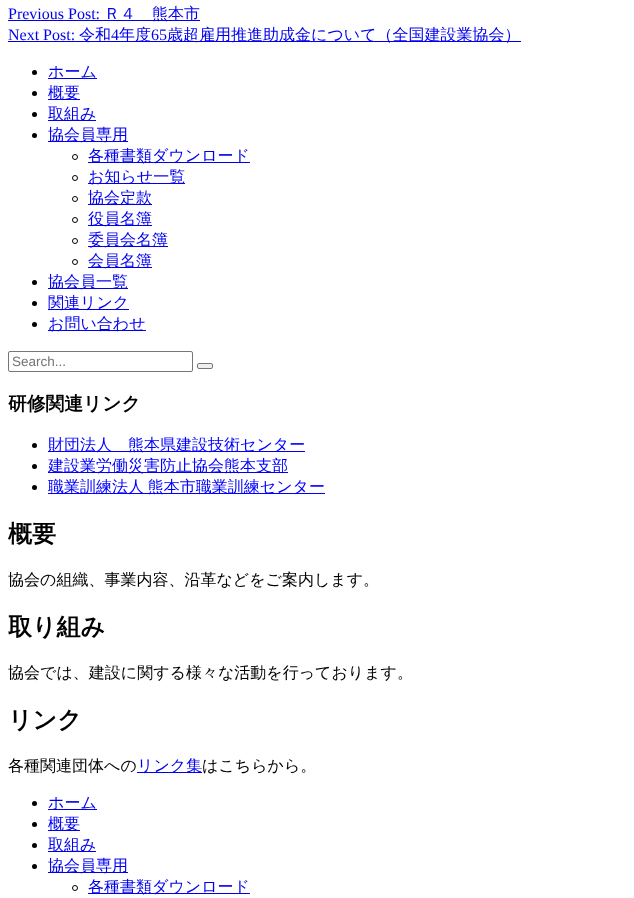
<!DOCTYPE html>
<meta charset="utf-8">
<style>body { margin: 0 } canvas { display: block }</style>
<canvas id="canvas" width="634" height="898"></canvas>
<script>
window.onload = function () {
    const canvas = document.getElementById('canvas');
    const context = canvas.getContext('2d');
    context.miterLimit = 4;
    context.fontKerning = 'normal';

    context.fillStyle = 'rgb(255, 255, 255)';
    context.fillRect(0, 0, 634, 898);
    context.fillStyle = 'rgb(0, 0, 238)';
    context.fillRect(8, 20, 192, 1);
    context.fillRect(8, 41, 513, 1);
    context.fillStyle = 'rgb(0, 0, 0)';
    context.beginPath();
    context.arc(34.5, 72.5, 2.5, 0, 2 * Math.PI);
    context.fill();
    context.fillStyle = 'rgb(0, 0, 238)';
    context.fillRect(48, 78, 49, 1);
    context.fillStyle = 'rgb(0, 0, 0)';
    context.beginPath();
    context.arc(34.5, 93.5, 2.5, 0, 2 * Math.PI);
    context.fill();
    context.fillStyle = 'rgb(0, 0, 238)';
    context.fillRect(48, 99, 32, 1);
    context.fillStyle = 'rgb(0, 0, 0)';
    context.beginPath();
    context.arc(34.5, 114.5, 2.5, 0, 2 * Math.PI);
    context.fill();
    context.fillStyle = 'rgb(0, 0, 238)';
    context.fillRect(48, 120, 48, 1);
    context.fillStyle = 'rgb(0, 0, 0)';
    context.beginPath();
    context.arc(34.5, 135.5, 2.5, 0, 2 * Math.PI);
    context.fill();
    context.fillStyle = 'rgb(0, 0, 238)';
    context.fillRect(48, 141, 80, 1);
    context.beginPath();
    context.arc(75, 157, 2.5, 0, 2 * Math.PI);
    context.strokeStyle = 'rgb(0, 0, 0)';
    context.stroke();
    context.fillRect(88, 162, 162, 1);
    context.beginPath();
    context.arc(75, 178, 2.5, 0, 2 * Math.PI);
    context.stroke();
    context.fillRect(88, 183, 97, 1);
    context.beginPath();
    context.arc(75, 199, 2.5, 0, 2 * Math.PI);
    context.stroke();
    context.fillRect(88, 204, 64, 1);
    context.beginPath();
    context.arc(75, 220, 2.5, 0, 2 * Math.PI);
    context.stroke();
    context.fillRect(88, 225, 64, 1);
    context.beginPath();
    context.arc(75, 241, 2.5, 0, 2 * Math.PI);
    context.stroke();
    context.fillRect(88, 246, 80, 1);
    context.beginPath();
    context.arc(75, 262, 2.5, 0, 2 * Math.PI);
    context.stroke();
    context.fillRect(88, 267, 64, 1);
    context.fillStyle = 'rgb(0, 0, 0)';
    context.beginPath();
    context.arc(34.5, 282.5, 2.5, 0, 2 * Math.PI);
    context.fill();
    context.fillStyle = 'rgb(0, 0, 238)';
    context.fillRect(48, 288, 80, 1);
    context.fillStyle = 'rgb(0, 0, 0)';
    context.beginPath();
    context.arc(34.5, 303.5, 2.5, 0, 2 * Math.PI);
    context.fill();
    context.fillStyle = 'rgb(0, 0, 238)';
    context.fillRect(48, 309, 81, 1);
    context.fillStyle = 'rgb(0, 0, 0)';
    context.beginPath();
    context.arc(34.5, 324.5, 2.5, 0, 2 * Math.PI);
    context.fill();
    context.fillStyle = 'rgb(0, 0, 238)';
    context.fillRect(48, 330, 98, 1);
    context.beginPath();
    context.roundRect(8.5, 351.5, 184, 20, 1.5);
    context.strokeStyle = 'rgb(118, 118, 118)';
    context.stroke();
    context.fillStyle = 'rgb(239, 239, 239)';
    context.beginPath();
    context.roundRect(197.5, 363.5, 15, 5, 1.5);
    context.fill();
    context.stroke();
    context.fillStyle = 'rgb(0, 0, 0)';
    context.beginPath();
    context.arc(34.5, 445.5, 2.5, 0, 2 * Math.PI);
    context.fill();
    context.fillStyle = 'rgb(0, 0, 238)';
    context.fillRect(48, 451, 257, 1);
    context.fillStyle = 'rgb(0, 0, 0)';
    context.beginPath();
    context.arc(34.5, 466.5, 2.5, 0, 2 * Math.PI);
    context.fill();
    context.fillStyle = 'rgb(0, 0, 238)';
    context.fillRect(48, 472, 240, 1);
    context.fillStyle = 'rgb(0, 0, 0)';
    context.beginPath();
    context.arc(34.5, 487.5, 2.5, 0, 2 * Math.PI);
    context.fill();
    context.fillStyle = 'rgb(0, 0, 255)';
    context.fillRect(48, 493, 277, 1);
    context.fillStyle = 'rgb(0, 0, 238)';
    context.fillRect(137, 772, 65, 1);
    context.fillStyle = 'rgb(0, 0, 0)';
    context.beginPath();
    context.arc(34.5, 803.5, 2.5, 0, 2 * Math.PI);
    context.fill();
    context.fillStyle = 'rgb(0, 0, 238)';
    context.fillRect(48, 809, 49, 1);
    context.fillStyle = 'rgb(0, 0, 0)';
    context.beginPath();
    context.arc(34.5, 824.5, 2.5, 0, 2 * Math.PI);
    context.fill();
    context.fillStyle = 'rgb(0, 0, 238)';
    context.fillRect(48, 830, 32, 1);
    context.fillStyle = 'rgb(0, 0, 0)';
    context.beginPath();
    context.arc(34.5, 845.5, 2.5, 0, 2 * Math.PI);
    context.fill();
    context.fillStyle = 'rgb(0, 0, 238)';
    context.fillRect(48, 851, 48, 1);
    context.fillStyle = 'rgb(0, 0, 0)';
    context.beginPath();
    context.arc(34.5, 866.5, 2.5, 0, 2 * Math.PI);
    context.fill();
    context.fillStyle = 'rgb(0, 0, 238)';
    context.fillRect(48, 872, 80, 1);
    context.beginPath();
    context.arc(75, 888, 2.5, 0, 2 * Math.PI);
    context.strokeStyle = 'rgb(0, 0, 0)';
    context.stroke();
    context.fillRect(88, 893, 162, 1);
    context.font = '16px Liberation Serif';
    context.fillText('Previous Post:', 8, 19);
    context.font = '500 16px WenQuanYi Zen Hei';
    context.fillText('Ｒ４　熊本市', 104, 19);
    context.font = '16px Liberation Serif';
    context.fillText('Next Post:', 8, 40);
    context.font = '500 16px WenQuanYi Zen Hei';
    context.fillText('令和', 79, 40);
    context.font = '16px Liberation Serif';
    context.fillText('4', 111, 40);
    context.font = '500 16px WenQuanYi Zen Hei';
    context.fillText('年度', 119, 40);
    context.font = '16px Liberation Serif';
    context.fillText('65', 151, 40);
    context.font = '500 16px WenQuanYi Zen Hei';
    context.fillText('歳超雇用推進助成金について（全国建設業協会）', 167, 40);
    context.fillText('ホーム', 48, 77);
    context.fillText('概要', 48, 98);
    context.fillText('取組み', 48, 119);
    context.fillText('協会員専用', 48, 140);
    context.fillText('各種書類ダウンロード', 88, 161);
    context.fillText('お知らせ一覧', 88, 182);
    context.fillText('協会定款', 88, 203);
    context.fillText('役員名簿', 88, 224);
    context.fillText('委員会名簿', 88, 245);
    context.fillText('会員名簿', 88, 266);
    context.fillText('協会員一覧', 48, 287);
    context.fillText('関連リンク', 48, 308);
    context.fillText('お問い合わせ', 48, 329);
    context.font = '13.5px Liberation Sans';
    context.fillStyle = 'rgb(117, 117, 117)';
    context.fillText('Search...', 12, 366);
    context.font = 'bold 18.75px WenQuanYi Zen Hei';
    context.fillStyle = 'rgb(0, 0, 0)';
    context.fillText('研修関連リンク', 8, 410);
    context.font = '500 16px WenQuanYi Zen Hei';
    context.fillStyle = 'rgb(0, 0, 255)';
    context.fillText('財団法人　熊本県建設技術センター', 48, 450);
    context.fillText('建設業労働災害防止協会熊本支部', 48, 471);
    context.wordSpacing = '-1px';
    context.fillText('職業訓練法人 熊本市職業訓練センター', 48, 492);
    context.wordSpacing = '0px';
    context.font = 'bold 24px WenQuanYi Zen Hei';
    context.fillStyle = 'rgb(0, 0, 0)';
    context.fillText('概要', 8, 542);
    context.font = '500 16px WenQuanYi Zen Hei';
    context.fillText('協会の組織、事業内容、沿革などをご案内します。', 8, 585);
    context.font = 'bold 24px WenQuanYi Zen Hei';
    context.fillText('取り組み', 8, 635);
    context.font = '500 16px WenQuanYi Zen Hei';
    context.fillText('協会では、建設に関する様々な活動を行っております。', 8, 678);
    context.font = 'bold 24px WenQuanYi Zen Hei';
    context.fillText('リンク', 8, 728);
    context.font = '500 16px WenQuanYi Zen Hei';
    context.fillText('各種関連団体への', 8, 771);
    context.fillStyle = 'rgb(0, 0, 238)';
    context.fillText('リンク集', 137, 771);
    context.fillStyle = 'rgb(0, 0, 0)';
    context.fillText('はこちらから。', 202, 771);
    context.fillStyle = 'rgb(0, 0, 238)';
    context.fillText('ホーム', 48, 808);
    context.fillText('概要', 48, 829);
    context.fillText('取組み', 48, 850);
    context.fillText('協会員専用', 48, 871);
    context.fillText('各種書類ダウンロード', 88, 892);
};
</script>
